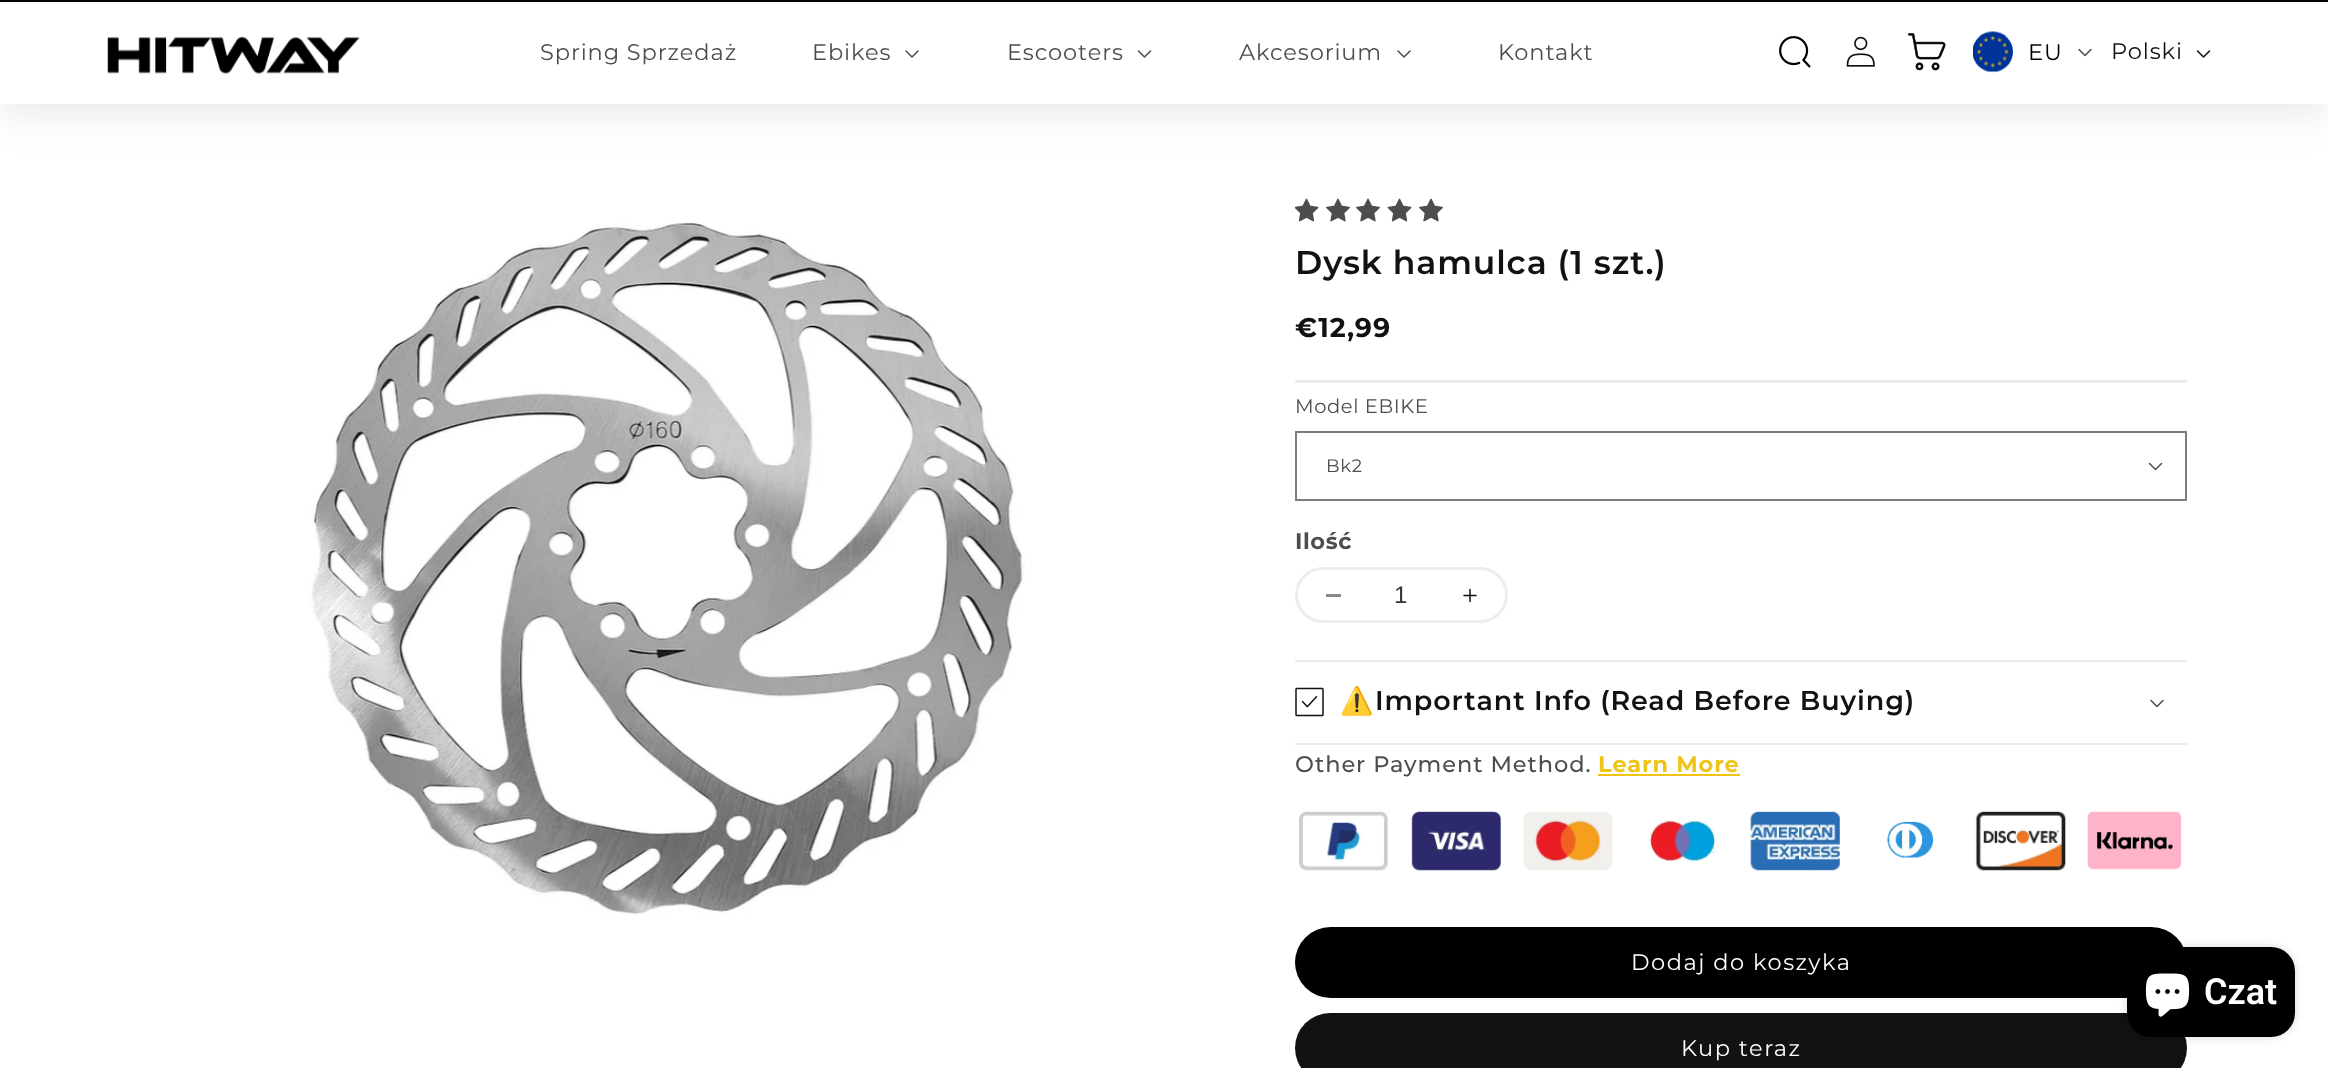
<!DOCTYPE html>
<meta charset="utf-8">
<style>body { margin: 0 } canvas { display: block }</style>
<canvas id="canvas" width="2328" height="1068"></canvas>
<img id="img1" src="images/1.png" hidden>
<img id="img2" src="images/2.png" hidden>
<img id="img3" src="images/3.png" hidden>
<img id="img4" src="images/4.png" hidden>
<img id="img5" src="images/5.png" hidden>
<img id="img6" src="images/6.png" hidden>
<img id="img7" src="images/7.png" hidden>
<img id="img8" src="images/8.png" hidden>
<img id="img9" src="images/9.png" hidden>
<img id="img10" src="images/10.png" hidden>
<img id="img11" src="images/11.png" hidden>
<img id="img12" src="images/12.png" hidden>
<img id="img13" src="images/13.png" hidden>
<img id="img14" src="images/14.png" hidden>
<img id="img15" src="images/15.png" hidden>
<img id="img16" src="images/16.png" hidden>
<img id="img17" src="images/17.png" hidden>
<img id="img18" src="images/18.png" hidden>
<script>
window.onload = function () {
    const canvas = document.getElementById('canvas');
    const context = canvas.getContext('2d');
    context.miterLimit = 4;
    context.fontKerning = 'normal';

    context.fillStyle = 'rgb(255, 255, 255)';
    context.fillRect(0, 0, 2328, 1068);
    context.fillStyle = 'rgba(149, 157, 165, 0.2)';
    context.filter = 'blur(18px)';
    context.beginPath();
    context.rect(0, 14, 2328, 102);
    context.fill();
    context.filter = 'none';
    context.fillStyle = 'rgb(0, 0, 0)';
    context.fillRect(0, 0, 2328, 2);
    context.fillStyle = 'rgb(255, 255, 255)';
    context.fillRect(0, 2, 2328, 102);
    context.drawImage(document.getElementById('img1'), 107, 36, 253, 39);
    context.drawImage(document.getElementById('img2'), 905, 50, 14, 8);
    context.drawImage(document.getElementById('img3'), 1137, 50, 15, 8);
    context.drawImage(document.getElementById('img2'), 1397, 50, 14, 8);
    context.drawImage(document.getElementById('img4'), 1779, 36, 32, 32);
    context.drawImage(document.getElementById('img5'), 1846, 36, 29, 31);
    context.drawImage(document.getElementById('img6'), 1908, 33, 38, 38);
    context.drawImage(document.getElementById('img7'), 1973, 31, 40, 42);
    context.drawImage(document.getElementById('img8'), 2078, 48, 14, 9);
    context.drawImage(document.getElementById('img9'), 2196, 50, 15, 8);
    context.drawImage(document.getElementById('img10'), 310, 222, 715, 692);
    context.drawImage(document.getElementById('img11'), 1295, 198, 24, 24);
    context.drawImage(document.getElementById('img12'), 1326, 198, 24, 24);
    context.drawImage(document.getElementById('img12'), 1356, 198, 24, 24);
    context.drawImage(document.getElementById('img13'), 1387, 198, 25, 24);
    context.drawImage(document.getElementById('img12'), 1419, 198, 24, 24);
    context.fillStyle = 'rgb(235, 235, 235)';
    context.fillRect(1295, 380, 892, 3);
    context.drawImage(document.getElementById('img14'), 2148, 462, 15, 9);
    context.strokeStyle = 'rgb(125, 125, 125)';
    context.lineWidth = 2;
    context.strokeRect(1296, 432, 890, 68);
    context.beginPath();
    context.roundRect(1296.5, 568.5, 210, 53, 26.5);
    context.strokeStyle = 'rgb(237, 237, 237)';
    context.lineWidth = 3;
    context.stroke();
    context.fillStyle = 'rgb(137, 137, 137)';
    context.fillRect(1326, 594, 15, 3);
    context.drawImage(document.getElementById('img15'), 1463, 588, 14, 15);
    context.fillStyle = 'rgb(236, 236, 236)';
    context.fillRect(1295, 660, 892, 2);
    context.fillRect(1295, 743, 892, 2);
    context.drawImage(document.getElementById('img16'), 1295, 687, 29, 30);
    context.drawImage(document.getElementById('img8'), 2150, 699, 14, 9);
    context.fillStyle = 'rgb(240, 196, 23)';
    context.fillRect(1598, 774, 142, 2);
    context.drawImage(document.getElementById('img17'), 1299, 811, 883, 60);
    context.fillStyle = 'rgb(0, 0, 0)';
    context.beginPath();
    context.roundRect(1295, 927, 892, 71, 35.5);
    context.fill();
    context.fillStyle = 'rgb(18, 18, 18)';
    context.beginPath();
    context.roundRect(1295, 1013, 892, 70, 35);
    context.fill();
    context.fillStyle = 'rgba(0, 0, 0, 0.15)';
    context.filter = 'blur(4px)';
    context.beginPath();
    context.roundRect(2127, 947, 168, 90, 24);
    context.fill();
    context.filter = 'none';
    context.fillStyle = 'rgb(0, 0, 0)';
    context.beginPath();
    context.roundRect(2127, 947, 168, 90, 24);
    context.fill();
    context.drawImage(document.getElementById('img18'), 2145, 973, 45, 44);
    context.letterSpacing = '0.9px';
    context.font = '22.5px Montserrat';
    context.fillStyle = 'rgb(77, 77, 77)';
    context.fillText('Spring Sprzedaż', 540, 60);
    context.fillText('Ebikes', 812, 60);
    context.fillText('Escooters', 1007, 60);
    context.fillText('Akcesorium', 1239, 60);
    context.fillText('Kontakt', 1498, 60);
    context.fillStyle = 'rgb(0, 0, 0)';
    context.fillText('EU', 2028, 60);
    context.fillStyle = 'rgb(18, 18, 18)';
    context.fillText('Polski', 2111, 59);
    context.font = '600 33px Montserrat';
    context.fillText('Dysk hamulca (1 szt.)', 1295, 274);
    context.font = 'bold 27px Montserrat';
    context.fillText('€12,99', 1295, 337);
    context.letterSpacing = '0.6px';
    context.font = '19.5px Montserrat';
    context.fillStyle = 'rgb(77, 77, 77)';
    context.fillText('Model EBIKE', 1295, 413);
    context.font = '18px Montserrat';
    context.fillText('Bk2', 1326, 472);
    context.font = 'bold 22.5px Montserrat';
    context.fillText('Ilość', 1295, 549);
    context.letterSpacing = '0px';
    context.font = '24px Liberation Sans';
    context.fillStyle = 'rgb(54, 54, 54)';
    context.fillText('1', 1394, 603);
    context.letterSpacing = '0.9px';
    context.font = '27px Noto Color Emoji';
    context.fillStyle = 'rgb(18, 18, 18)';
    context.fillText('⚠️', 1340, 710);
    context.font = '600 27px Montserrat';
    context.fillText('Important Info (Read Before Buying)', 1375, 710);
    context.font = '500 22.5px Montserrat';
    context.fillStyle = 'rgb(77, 77, 77)';
    context.fillText('Other Payment Method.', 1295, 772);
    context.font = 'bold 22.5px Montserrat';
    context.fillStyle = 'rgb(240, 196, 23)';
    context.fillText('Learn More', 1598, 772);
    context.letterSpacing = '1.5px';
    context.font = '22.5px Montserrat';
    context.fillStyle = 'rgb(255, 255, 255)';
    context.fillText('Dodaj do koszyka', 1631, 970);
    context.fillText('Kup teraz', 1681, 1056);
    context.letterSpacing = '0px';
    context.font = '600 36px Roboto';
    context.fillText('Czat', 2204, 1004);
};
</script>
